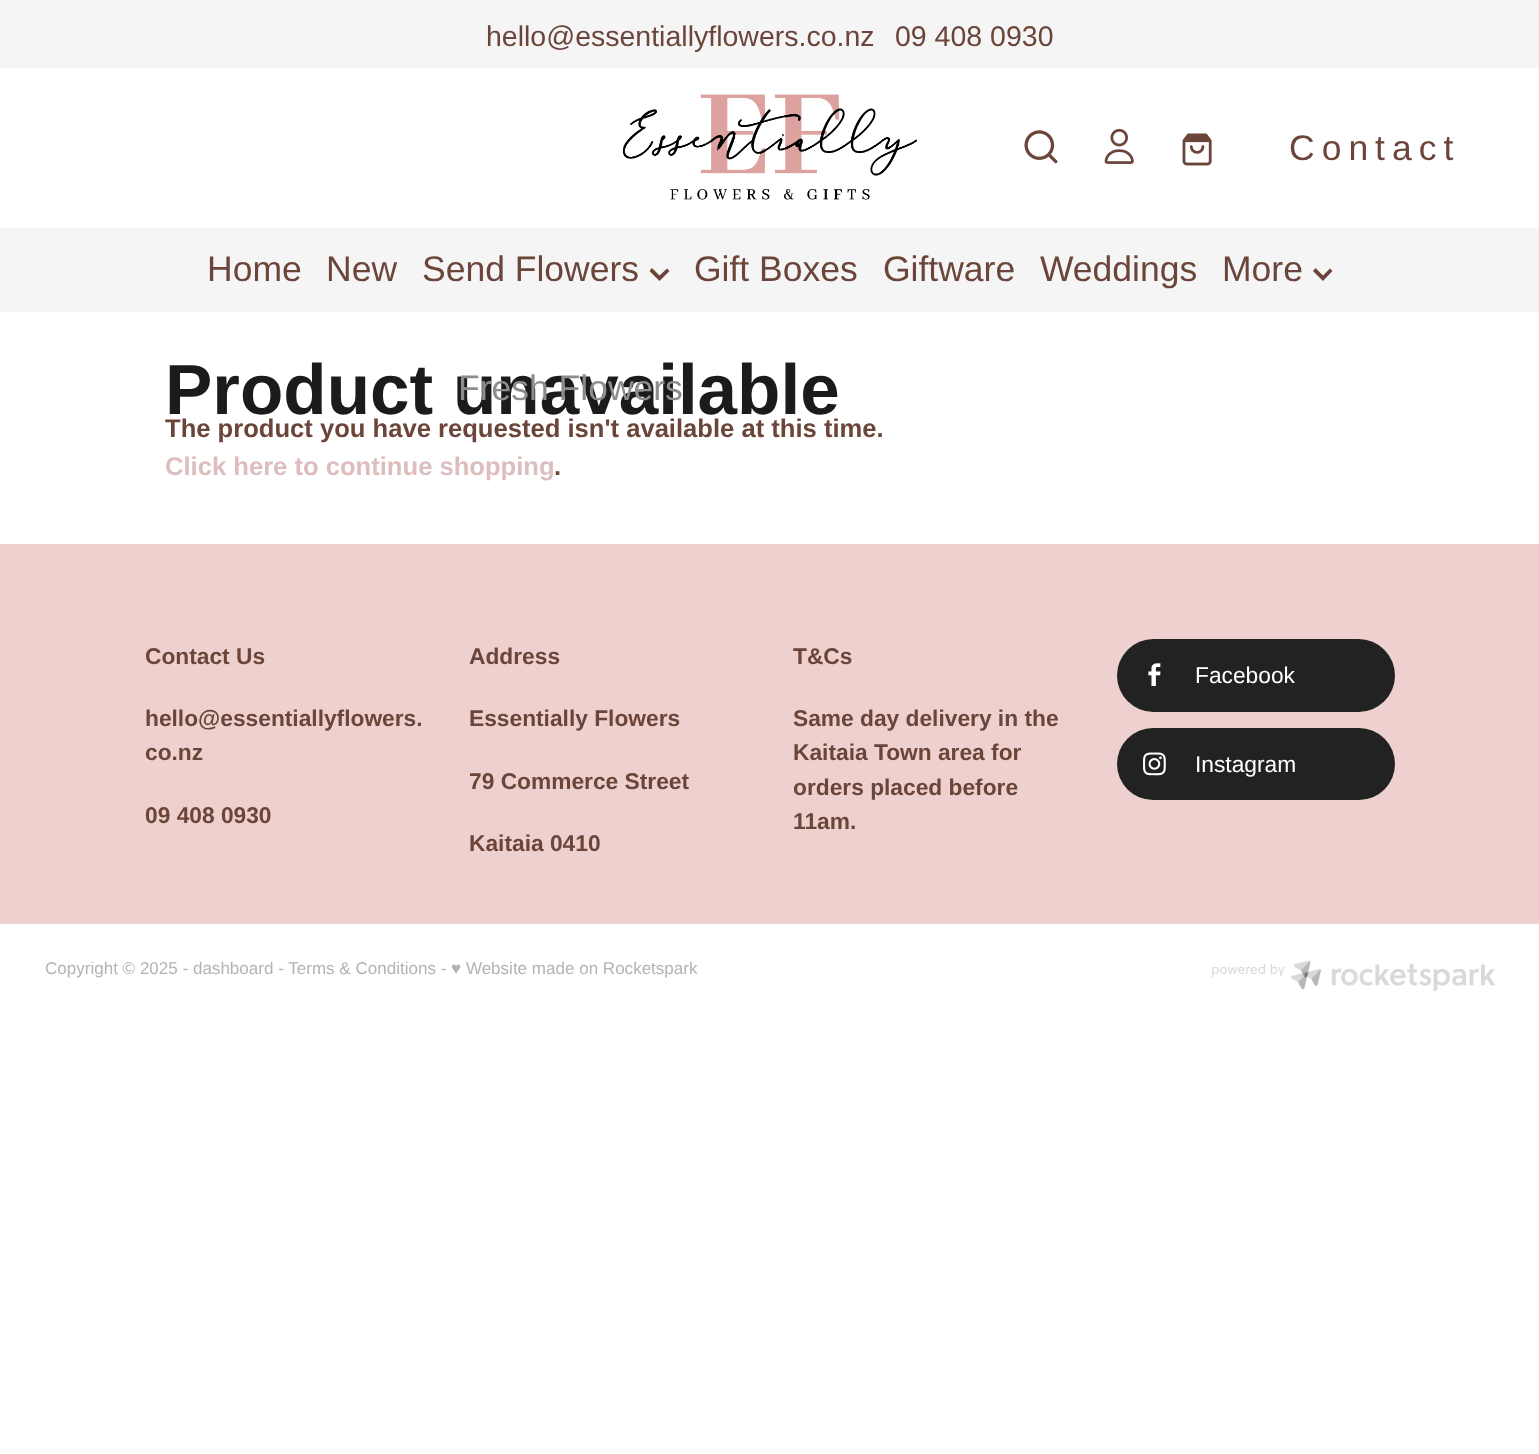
<!DOCTYPE html>
<meta charset="utf-8">
<style>body { margin: 0 } canvas { display: block }</style>
<canvas id="canvas" width="1539" height="1454"></canvas>
<img id="img1" src="images/1.png" hidden>
<img id="img2" src="images/2.png" hidden>
<img id="img3" src="images/3.png" hidden>
<img id="img4" src="images/4.png" hidden>
<img id="img5" src="images/5.png" hidden>
<img id="img6" src="images/6.png" hidden>
<img id="img7" src="images/7.png" hidden>
<script>
window.onload = function () {
    const canvas = document.getElementById('canvas');
    const context = canvas.getContext('2d');
    context.miterLimit = 4;
    context.fontKerning = 'normal';

    context.fillStyle = 'rgb(255, 255, 255)';
    context.fillRect(0, 0, 1539, 1454);
    context.fillStyle = 'rgb(245, 245, 245)';
    context.fillRect(0, 0, 1539, 68);
    context.drawImage(document.getElementById('img1'), 623, 94, 294, 106);
    context.drawImage(document.getElementById('img2'), 1024, 130, 34, 34);
    context.drawImage(document.getElementById('img3'), 1104, 128, 30, 36);
    context.drawImage(document.getElementById('img4'), 1182, 133, 30, 33);
    context.fillRect(0, 228, 1539, 84);
    context.fillStyle = 'rgb(107, 69, 58)';
    context.beginPath();
    context.moveTo(669.5, 271);
    context.lineTo(659.5, 281);
    context.lineTo(649.5, 271);
    context.lineTo(652, 268);
    context.lineTo(659.5, 275.5);
    context.lineTo(667, 268.5);
    context.closePath();
    context.fill('evenodd');
    context.beginPath();
    context.moveTo(1332.5, 271);
    context.lineTo(1323, 281);
    context.lineTo(1313, 271);
    context.lineTo(1315.5, 268);
    context.lineTo(1323, 275.5);
    context.lineTo(1330, 268.5);
    context.closePath();
    context.fill('evenodd');
    context.fillStyle = 'rgb(238, 208, 207)';
    context.fillRect(0, 544, 1539, 380);
    context.fillStyle = 'rgb(34, 34, 34)';
    context.beginPath();
    context.roundRect(1117, 639, 278, 73, 36.5);
    context.fill();
    context.drawImage(document.getElementById('img5'), 1148, 663, 13, 23);
    context.beginPath();
    context.roundRect(1117, 728, 278, 72, 36);
    context.fill();
    context.drawImage(document.getElementById('img6'), 1143, 752, 23, 24);
    context.drawImage(document.getElementById('img7'), 1212, 960, 283, 31);
    context.font = '28.5px Liberation Sans';
    context.fillStyle = 'rgb(107, 69, 58)';
    context.fillText('hello@essentiallyflowers.co.nz', 486, 46);
    context.fillText('09 408 0930', 895, 46);
    context.letterSpacing = '7px';
    context.font = '35.5px Liberation Sans';
    context.fillText('Contact', 1289, 160);
    context.letterSpacing = '0px';
    context.fillText('Home', 207, 281);
    context.fillText('New', 326, 281);
    context.fillText('Send Flowers', 422, 281);
    context.fillText('Gift Boxes', 694, 281);
    context.fillText('Giftware', 883, 281);
    context.fillText('Weddings', 1040, 281);
    context.fillText('More', 1222, 281);
    context.font = 'bold 71px Liberation Sans';
    context.fillStyle = 'rgb(27, 27, 27)';
    context.fillText('Product unavailable', 165, 414);
    context.font = '35.5px Liberation Sans';
    context.fillStyle = 'rgb(141, 141, 141)';
    context.fillText('Fresh Flowers', 458, 400);
    context.font = 'bold 25.6px Liberation Sans';
    context.fillStyle = 'rgb(107, 69, 58)';
    context.fillText('The product you have requested isn\'t available at this time.', 165, 437);
    context.fillStyle = 'rgb(221, 189, 189)';
    context.fillText('Click here to continue shopping', 165, 475);
    context.fillStyle = 'rgb(107, 69, 58)';
    context.fillText('.', 554, 475);
    context.font = 'bold 22.75px Liberation Sans';
    context.fillText('Contact Us', 145, 664);
    context.fillText('hello@essentiallyflowers.', 145, 726);
    context.fillText('co.nz', 145, 760);
    context.fillText('09 408 0930', 145, 823);
    context.fillText('Address', 469, 664);
    context.fillText('Essentially Flowers', 469, 726);
    context.fillText('79 Commerce Street', 469, 789);
    context.fillText('Kaitaia 0410', 469, 851);
    context.fillText('T&Cs', 793, 664);
    context.fillText('Same day delivery in the', 793, 726);
    context.fillText('Kaitaia Town area for', 793, 760);
    context.fillText('orders placed before', 793, 795);
    context.fillText('11am.', 793, 829);
    context.font = '22.75px Liberation Sans';
    context.fillStyle = 'rgb(255, 255, 255)';
    context.fillText('Facebook', 1195, 683);
    context.fillText('Instagram', 1195, 772);
    context.font = '17.05px Liberation Sans';
    context.fillStyle = 'rgb(179, 179, 179)';
    context.fillText('Copyright © 2025 - dashboard - Terms & Conditions - ♥ Website made on Rocketspark', 45, 974);
};
</script>
